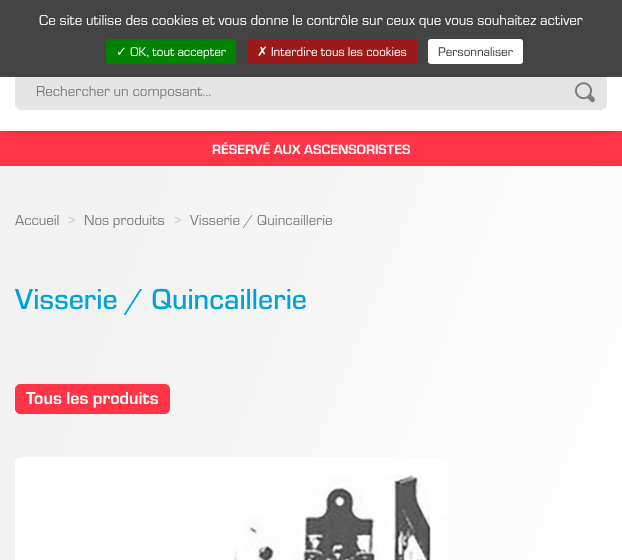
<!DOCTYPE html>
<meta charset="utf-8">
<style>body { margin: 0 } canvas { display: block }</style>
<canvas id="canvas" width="622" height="560"></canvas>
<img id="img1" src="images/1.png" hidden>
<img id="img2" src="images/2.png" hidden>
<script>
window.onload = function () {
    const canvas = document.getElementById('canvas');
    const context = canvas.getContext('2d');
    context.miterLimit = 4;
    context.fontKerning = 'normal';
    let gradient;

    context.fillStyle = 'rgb(255, 255, 255)';
    context.fillRect(0, 0, 622, 560);
    context.fillStyle = 'rgb(255, 53, 71)';
    context.fillRect(0, 131, 622, 35);
    context.save();
    context.beginPath();
    context.rect(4, 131, 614, 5);
    context.clip();
    context.fillStyle = 'rgba(0, 0, 0, 0.2)';
    context.filter = 'blur(4px)';
    context.beginPath();
    context.rect(7, 14, 608, 117);
    context.fill();
    context.filter = 'none';
    context.restore();
    context.fillStyle = 'rgb(229, 229, 229)';
    context.beginPath();
    context.roundRect(15.5, 70.5, 591, 39, 5.5);
    context.fill();
    context.strokeStyle = 'rgb(229, 229, 229)';
    context.stroke();
    context.fillStyle = 'rgb(68, 68, 68)';
    context.fillRect(0, 0, 622, 77);
    context.fillStyle = 'rgb(0, 131, 0)';
    context.beginPath();
    context.roundRect(106, 39, 130, 25, 3);
    context.fill();
    context.fillStyle = 'rgb(156, 26, 26)';
    context.beginPath();
    context.roundRect(247, 39, 170, 25, 3);
    context.fill();
    context.fillStyle = 'rgb(255, 255, 255)';
    context.beginPath();
    context.roundRect(428, 39, 95, 25, 3);
    context.fill();
    context.drawImage(document.getElementById('img1'), 575, 82, 20, 21);
    gradient = context.createLinearGradient(-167, 554, 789, 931);
    gradient.addColorStop(0.15, 'rgb(242, 242, 242)');
    gradient.addColorStop(0.72, 'rgb(255, 255, 255)');
    context.fillStyle = gradient;
    context.fillRect(0, 166, 622, 394);
    context.fillStyle = 'rgb(255, 53, 71)';
    context.beginPath();
    context.roundRect(15.5, 384.5, 154, 29, 4.5);
    context.fill();
    context.strokeStyle = 'rgb(255, 53, 71)';
    context.stroke();
    context.drawImage(document.getElementById('img2'), 15, 457, 433, 103);
    context.font = '15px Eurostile';
    context.fillStyle = 'rgb(255, 255, 255)';
    context.fillText('Ce site utilise des cookies et vous donne le contrôle sur ceux que vous souhaitez activer', 39, 25);
    context.font = '13px DejaVu Sans';
    context.fillText('✓', 116, 56);
    context.font = '13px Eurostile';
    context.fillText('OK, tout accepter', 130, 56);
    context.font = '13px DejaVu Sans';
    context.fillText('✗', 257, 56);
    context.font = '13px Eurostile';
    context.fillText('Interdire tous les cookies', 271, 56);
    context.fillStyle = 'rgb(51, 51, 51)';
    context.fillText('Personnaliser', 438, 56);
    context.font = '15px Eurostile';
    context.fillStyle = 'rgb(125, 125, 125)';
    context.fillText('Rechercher un composant...', 36, 96);
    context.font = 'bold 14px Eurostile';
    context.fillStyle = 'rgb(255, 255, 255)';
    context.fillText('RÉSERVÉ AUX ASCENSORISTES', 212, 154);
    context.font = '15px Eurostile';
    context.fillStyle = 'rgb(125, 125, 125)';
    context.fillText('Accueil', 15, 225);
    context.fillStyle = 'rgb(204, 204, 204)';
    context.fillText('>', 68, 225);
    context.fillStyle = 'rgb(125, 125, 125)';
    context.fillText('Nos produits', 84, 225);
    context.fillStyle = 'rgb(204, 204, 204)';
    context.fillText('>', 174, 225);
    context.fillStyle = 'rgb(125, 125, 125)';
    context.fillText('Visserie / Quincaillerie', 190, 225);
    context.font = '500 30px Eurostile';
    context.fillStyle = 'rgb(0, 163, 217)';
    context.fillText('Visserie / Quincaillerie', 15, 309);
    context.font = 'bold 18px Eurostile';
    context.fillStyle = 'rgb(255, 255, 255)';
    context.fillText('Tous les produits', 26, 404);
};
</script>
